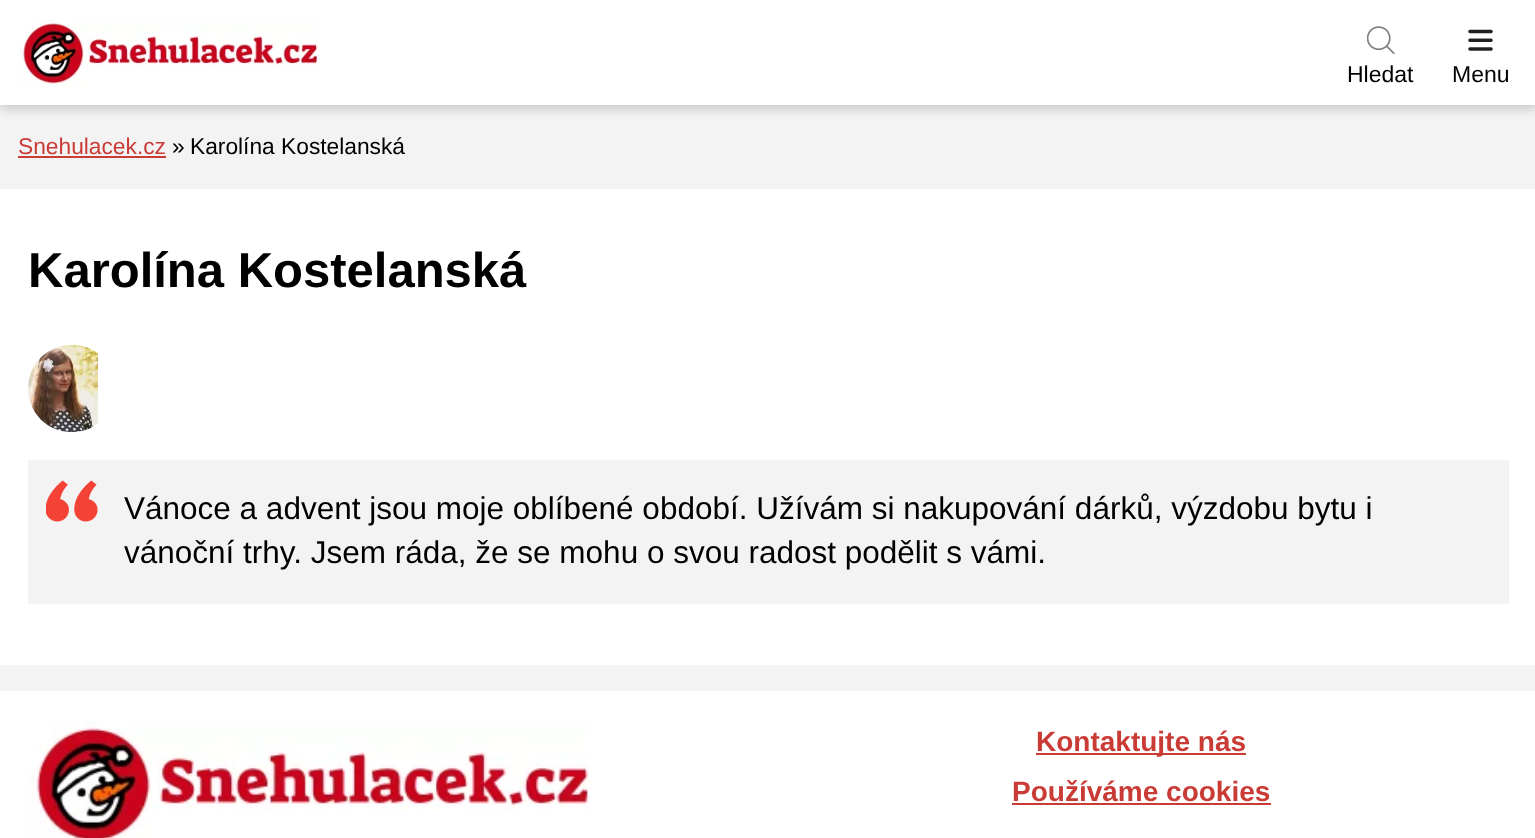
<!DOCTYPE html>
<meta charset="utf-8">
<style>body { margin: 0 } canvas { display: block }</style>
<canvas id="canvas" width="1535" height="838"></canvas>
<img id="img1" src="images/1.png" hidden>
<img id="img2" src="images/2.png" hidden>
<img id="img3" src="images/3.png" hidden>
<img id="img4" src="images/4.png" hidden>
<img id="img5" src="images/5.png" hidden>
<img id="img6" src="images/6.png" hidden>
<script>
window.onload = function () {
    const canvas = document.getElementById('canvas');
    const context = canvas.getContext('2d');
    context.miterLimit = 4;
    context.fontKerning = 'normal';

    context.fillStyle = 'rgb(243, 243, 243)';
    context.fillRect(0, 0, 1535, 838);
    context.fillStyle = 'rgba(0, 0, 0, 0.15)';
    context.filter = 'blur(5px)';
    context.beginPath();
    context.rect(0, 5, 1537, 105);
    context.fill();
    context.filter = 'none';
    context.fillStyle = 'rgb(255, 255, 255)';
    context.fillRect(0, 0, 1535, 105);
    context.drawImage(document.getElementById('img1'), 18, 19, 301, 69);
    context.drawImage(document.getElementById('img2'), 1367, 26, 28, 28);
    context.drawImage(document.getElementById('img3'), 1468, 29, 25, 22);
    context.fillStyle = 'rgb(202, 59, 54)';
    context.fillRect(18, 156, 148, 2);
    context.fillStyle = 'rgb(255, 255, 255)';
    context.fillRect(0, 189, 1535, 476);
    context.drawImage(document.getElementById('img4'), 28, 344, 70, 89);
    context.fillStyle = 'rgb(243, 243, 243)';
    context.fillRect(28, 460, 1481, 144);
    context.drawImage(document.getElementById('img5'), 46, 480, 52, 42);
    context.fillStyle = 'rgb(255, 255, 255)';
    context.fillRect(0, 691, 1535, 147);
    context.drawImage(document.getElementById('img6'), 26, 721, 565, 117);
    context.fillStyle = 'rgb(202, 59, 54)';
    context.fillRect(1036, 753, 210, 2);
    context.fillRect(1012, 803, 259, 2);
    context.font = '23px Liberation Sans';
    context.fillStyle = 'rgb(0, 0, 0)';
    context.fillText('Hledat', 1347, 82);
    context.fillText('Menu', 1452, 82);
    context.font = '22.75px Liberation Sans';
    context.fillStyle = 'rgb(202, 59, 54)';
    context.fillText('Snehulacek.cz', 18, 154);
    context.fillStyle = 'rgb(0, 0, 0)';
    context.fillText('»', 172, 154);
    context.fillText('Karolína Kostelanská', 190, 154);
    context.font = 'bold 49px Liberation Sans';
    context.fillText('Karolína Kostelanská', 28, 287);
    context.font = '31.5px Liberation Sans';
    context.fillText('Vánoce a advent jsou moje oblíbené období. Užívám si nakupování dárků, výzdobu bytu i', 124, 519);
    context.fillText('vánoční trhy. Jsem ráda, že se mohu o svou radost podělit s vámi.', 124, 563);
    context.font = 'bold 28px Liberation Sans';
    context.fillStyle = 'rgb(202, 59, 54)';
    context.fillText('Kontaktujte nás', 1036, 751);
    context.fillText('Používáme cookies', 1012, 801);
};
</script>
